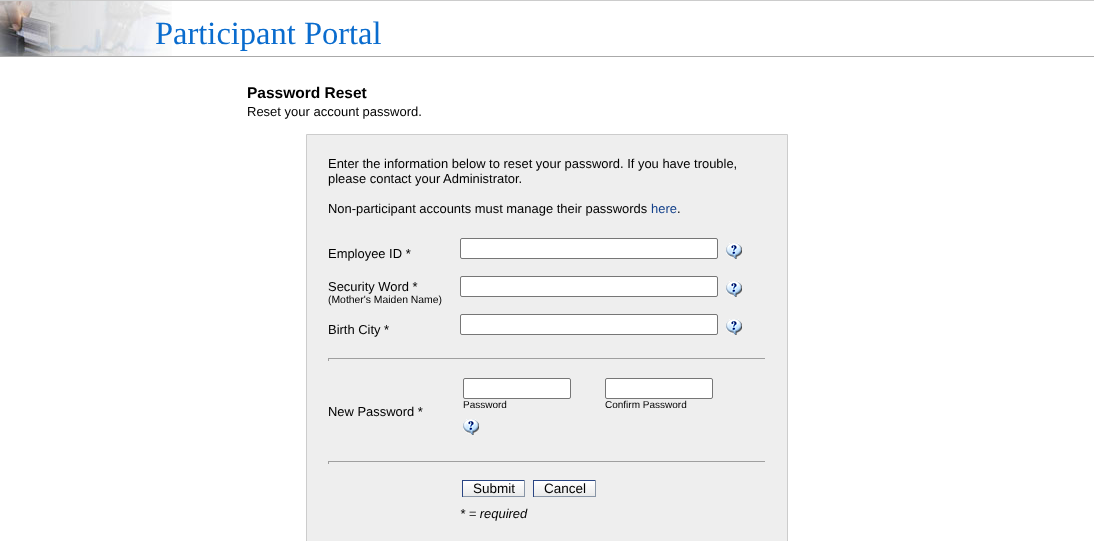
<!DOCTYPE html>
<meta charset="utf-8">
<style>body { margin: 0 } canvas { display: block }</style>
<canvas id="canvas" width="1094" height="541"></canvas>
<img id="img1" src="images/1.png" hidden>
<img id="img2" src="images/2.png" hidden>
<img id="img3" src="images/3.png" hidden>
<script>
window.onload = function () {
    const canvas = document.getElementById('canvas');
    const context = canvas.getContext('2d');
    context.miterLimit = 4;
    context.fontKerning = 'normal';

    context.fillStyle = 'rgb(255, 255, 255)';
    context.fillRect(0, 0, 1094, 541);
    context.fillStyle = 'rgb(204, 204, 204)';
    context.fillRect(0, 0, 1094, 1);
    context.drawImage(document.getElementById('img1'), 0, 1, 172, 55);
    context.fillStyle = 'rgb(170, 170, 170)';
    context.fillRect(0, 56, 1094, 1);
    context.fillStyle = 'rgb(238, 238, 238)';
    context.beginPath();
    context.rect(306.5, 134.5, 481, 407);
    context.fill();
    context.strokeStyle = 'rgb(204, 204, 204)';
    context.stroke();
    context.fillStyle = 'rgb(255, 255, 255)';
    context.beginPath();
    context.roundRect(460.5, 238.5, 257, 20, 1.5);
    context.fill();
    context.strokeStyle = 'rgb(118, 118, 118)';
    context.stroke();
    context.drawImage(document.getElementById('img2'), 726, 243, 16, 16);
    context.beginPath();
    context.roundRect(460.5, 276.5, 257, 20, 1.5);
    context.fill();
    context.stroke();
    context.drawImage(document.getElementById('img2'), 726, 281, 16, 16);
    context.beginPath();
    context.roundRect(460.5, 314.5, 257, 20, 1.5);
    context.fill();
    context.stroke();
    context.drawImage(document.getElementById('img2'), 726, 319, 16, 16);
    context.fillStyle = 'rgb(159, 159, 159)';
    context.fillRect(328, 358, 438, 1);
    context.fillStyle = 'rgb(238, 238, 238)';
    context.fillRect(765, 358, 1, 3);
    context.fillStyle = 'rgb(159, 159, 159)';
    context.fillRect(328, 358, 1, 3);
    context.fillStyle = 'rgb(255, 255, 255)';
    context.beginPath();
    context.roundRect(463.5, 378.5, 107, 20, 1.5);
    context.fill();
    context.stroke();
    context.beginPath();
    context.roundRect(605.5, 378.5, 107, 20, 1.5);
    context.fill();
    context.stroke();
    context.drawImage(document.getElementById('img2'), 463, 419, 16, 16);
    context.fillStyle = 'rgb(159, 159, 159)';
    context.fillRect(328, 461, 438, 1);
    context.fillStyle = 'rgb(238, 238, 238)';
    context.fillRect(765, 461, 1, 3);
    context.fillStyle = 'rgb(159, 159, 159)';
    context.fillRect(328, 461, 1, 3);
    context.drawImage(document.getElementById('img3'), 463, 481, 61, 15);
    context.fillStyle = 'rgb(41, 69, 132)';
    context.fillRect(462, 480, 63, 1);
    context.fillStyle = 'rgb(136, 149, 166)';
    context.fillRect(524, 480, 1, 17);
    context.fillRect(462, 496, 63, 1);
    context.fillStyle = 'rgb(41, 69, 132)';
    context.fillRect(462, 480, 1, 17);
    context.drawImage(document.getElementById('img3'), 534, 481, 61, 15);
    context.fillRect(533, 480, 63, 1);
    context.fillStyle = 'rgb(136, 149, 166)';
    context.fillRect(595, 480, 1, 17);
    context.fillRect(533, 496, 63, 1);
    context.fillStyle = 'rgb(41, 69, 132)';
    context.fillRect(533, 480, 1, 17);
    context.font = '32.5px Liberation Serif';
    context.fillStyle = 'rgb(10, 108, 206)';
    context.fillText('Participant Portal', 155, 44);
    context.font = 'bold 15.5px Liberation Sans';
    context.fillStyle = 'rgb(0, 0, 0)';
    context.fillText('Password Reset', 247, 98);
    context.font = '13px Liberation Sans';
    context.fillText('Reset your account password.', 247, 116);
    context.font = '12.95px Liberation Sans';
    context.fillText('Enter the information below to reset your password. If you have trouble,', 328, 168);
    context.fillText('please contact your Administrator.', 328, 183);
    context.fillText('Non-participant accounts must manage their passwords', 328, 213);
    context.fillStyle = 'rgb(21, 66, 139)';
    context.fillText('here', 651, 213);
    context.fillStyle = 'rgb(0, 0, 0)';
    context.fillText('.', 677, 213);
    context.fillText('Employee ID *', 328, 258);
    context.fillText('Security Word *', 328, 291);
    context.font = '10.4px Liberation Sans';
    context.fillText('(Mother\'s Maiden Name)', 328, 303);
    context.font = '12.95px Liberation Sans';
    context.fillText('Birth City *', 328, 334);
    context.font = '10px Liberation Sans';
    context.fillText('Password', 463, 408);
    context.fillText('Confirm Password', 605, 408);
    context.font = '12.95px Liberation Sans';
    context.fillText('New Password *', 328, 416);
    context.font = '13.5px Liberation Sans';
    context.fillText('Submit', 473, 493);
    context.fillText('Cancel', 544, 493);
    context.font = 'italic 12.95px Liberation Sans';
    context.fillText('* = required', 460, 518);
};
</script>
